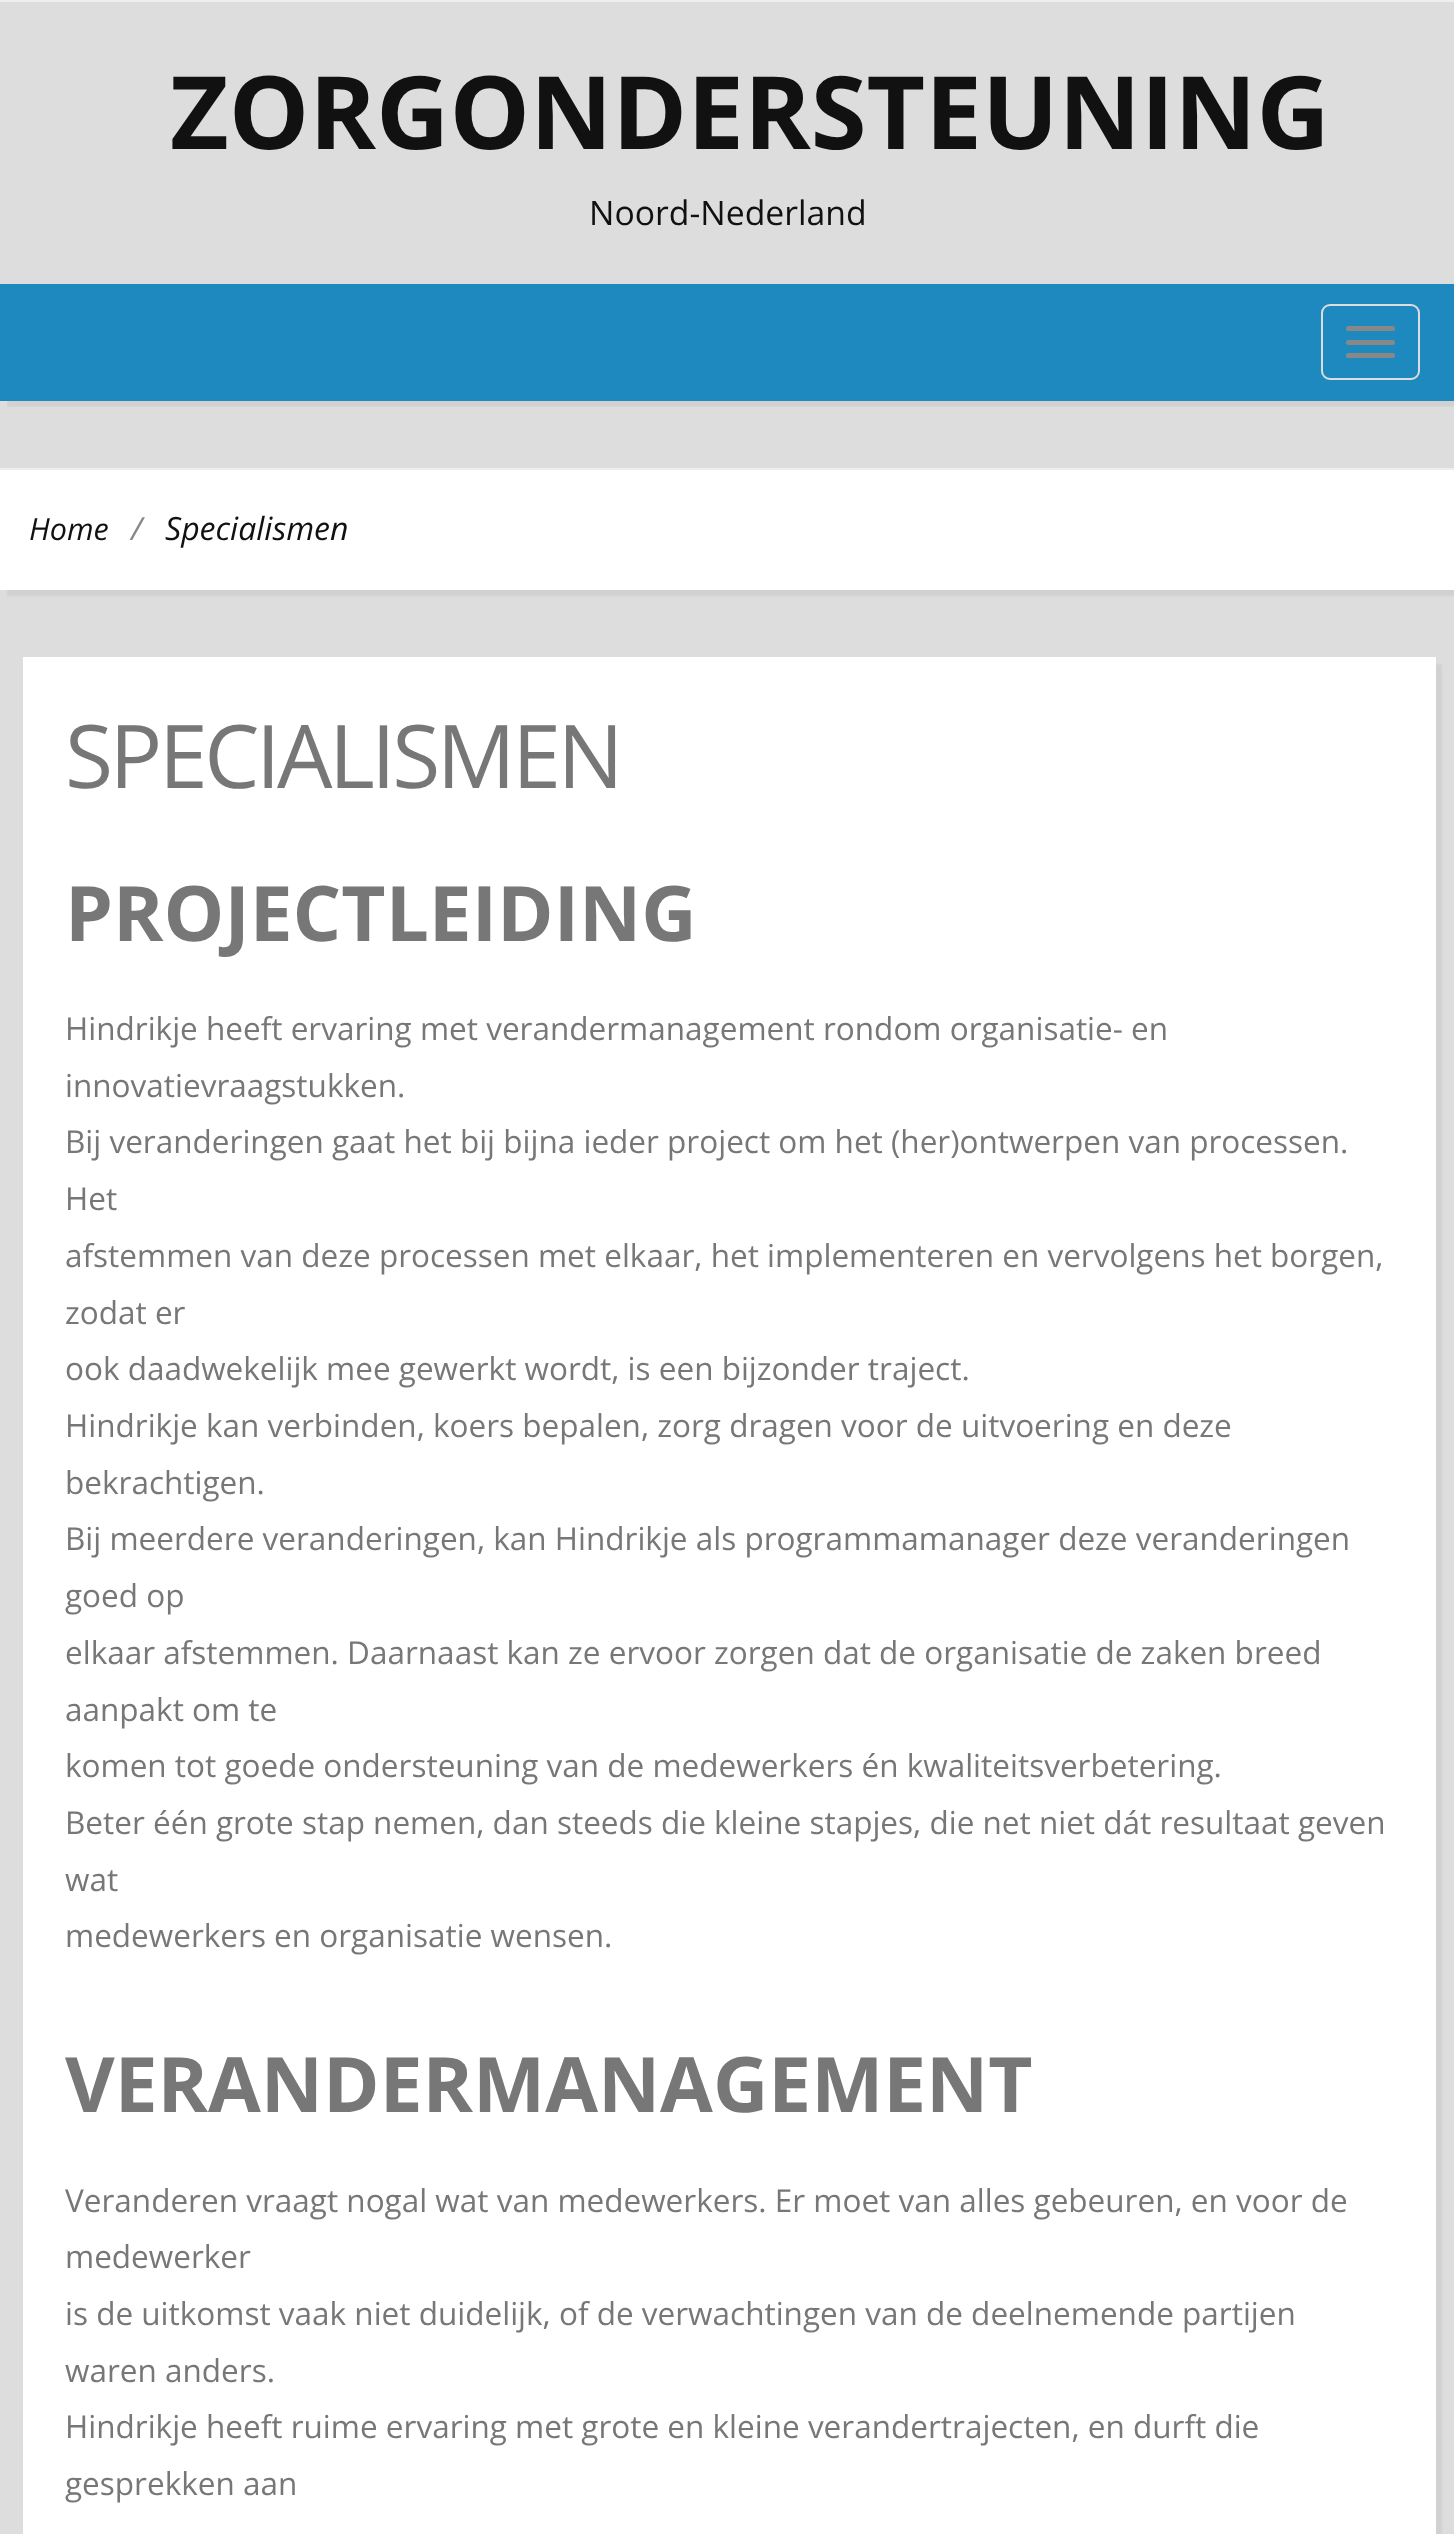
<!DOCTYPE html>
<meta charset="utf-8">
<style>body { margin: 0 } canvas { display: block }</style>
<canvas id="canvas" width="1454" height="2534"></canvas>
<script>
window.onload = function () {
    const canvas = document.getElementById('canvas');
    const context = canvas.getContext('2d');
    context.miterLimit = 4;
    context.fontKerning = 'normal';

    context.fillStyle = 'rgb(221, 221, 221)';
    context.fillRect(0, 0, 1454, 2534);
    context.save();
    context.beginPath();
    context.rect(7, 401, 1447, 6);
    context.clip();
    context.fillStyle = 'rgba(0, 0, 0, 0.05)';
    context.filter = 'blur(1px)';
    context.beginPath();
    context.rect(7, 7, 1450, 400);
    context.fill();
    context.filter = 'none';
    context.restore();
    context.fillStyle = 'rgb(238, 238, 238)';
    context.fillRect(0, 0, 1454, 2);
    context.fillStyle = 'rgb(30, 137, 191)';
    context.fillRect(0, 284, 1454, 117);
    context.beginPath();
    context.roundRect(1322, 305, 97, 74, 8);
    context.strokeStyle = 'rgb(221, 221, 221)';
    context.lineWidth = 2;
    context.stroke();
    context.fillStyle = 'rgb(136, 136, 136)';
    context.beginPath();
    context.roundRect(1346, 326, 49, 5, 2.5);
    context.fill();
    context.beginPath();
    context.roundRect(1346, 340, 49, 5, 2.5);
    context.fill();
    context.beginPath();
    context.roundRect(1346, 353, 49, 5, 2.5);
    context.fill();
    context.fillStyle = 'rgba(0, 0, 0, 0.05)';
    context.filter = 'blur(1px)';
    context.beginPath();
    context.rect(7, 475, 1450, 121);
    context.fill();
    context.filter = 'none';
    context.fillStyle = 'rgb(255, 255, 255)';
    context.fillRect(0, 470, 1454, 120);
    context.fillStyle = 'rgb(238, 238, 238)';
    context.fillRect(0, 468, 1454, 2);
    context.fillStyle = 'rgba(0, 0, 0, 0.05)';
    context.filter = 'blur(1px)';
    context.beginPath();
    context.rect(29, 664, 1413, 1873);
    context.fill();
    context.filter = 'none';
    context.fillStyle = 'rgb(255, 255, 255)';
    context.fillRect(23, 657, 1413, 1877);
    context.font = 'bold 101.25px Open Sans';
    context.fillStyle = 'rgb(17, 17, 17)';
    context.fillText('ZORGONDERSTEUNING', 170, 149);
    context.font = '33.75px Open Sans';
    context.fillText('Noord-Nederland', 589, 225);
    context.font = 'italic 30.5px Open Sans';
    context.fillText('Home', 29, 540);
    context.font = 'italic 32px Open Sans';
    context.fillStyle = 'rgb(136, 136, 136)';
    context.fillText('/', 131, 540);
    context.fillStyle = 'rgb(17, 17, 17)';
    context.fillText('Specialismen', 165, 540);
    context.letterSpacing = '-3.5px';
    context.font = '87.75px Open Sans';
    context.fillStyle = 'rgb(119, 119, 119)';
    context.fillText('SPECIALISMEN', 65, 788);
    context.letterSpacing = '0px';
    context.font = 'bold 76.5px Open Sans';
    context.fillText('PROJECTLEIDING', 65, 941);
    context.font = '31.5px Open Sans';
    context.fillText('Hindrikje heeft ervaring met verandermanagement rondom organisatie- en', 65, 1040);
    context.fillText('innovatievraagstukken.', 65, 1097);
    context.fillText('Bij veranderingen gaat het bij bijna ieder project om het (her)ontwerpen van processen.', 65, 1153);
    context.fillText('Het', 65, 1210);
    context.fillText('afstemmen van deze processen met elkaar, het implementeren en vervolgens het borgen,', 65, 1267);
    context.fillText('zodat er', 65, 1324);
    context.fillText('ook daadwekelijk mee gewerkt wordt, is een bijzonder traject.', 65, 1380);
    context.fillText('Hindrikje kan verbinden, koers bepalen, zorg dragen voor de uitvoering en deze', 65, 1437);
    context.fillText('bekrachtigen.', 65, 1494);
    context.fillText('Bij meerdere veranderingen, kan Hindrikje als programmamanager deze veranderingen', 65, 1550);
    context.fillText('goed op', 65, 1607);
    context.fillText('elkaar afstemmen. Daarnaast kan ze ervoor zorgen dat de organisatie de zaken breed', 65, 1664);
    context.fillText('aanpakt om te', 65, 1721);
    context.fillText('komen tot goede ondersteuning van de medewerkers én kwaliteitsverbetering.', 65, 1777);
    context.fillText('Beter één grote stap nemen, dan steeds die kleine stapjes, die net niet dát resultaat geven', 65, 1834);
    context.fillText('wat', 65, 1891);
    context.fillText('medewerkers en organisatie wensen.', 65, 1947);
    context.font = 'bold 76.5px Open Sans';
    context.fillText('VERANDERMANAGEMENT', 65, 2112);
    context.font = '31.5px Open Sans';
    context.fillText('Veranderen vraagt nogal wat van medewerkers. Er moet van alles gebeuren, en voor de', 65, 2212);
    context.fillText('medewerker', 65, 2268);
    context.fillText('is de uitkomst vaak niet duidelijk, of de verwachtingen van de deelnemende partijen', 65, 2325);
    context.fillText('waren anders.', 65, 2382);
    context.fillText('Hindrikje heeft ruime ervaring met grote en kleine verandertrajecten, en durft die', 65, 2438);
    context.fillText('gesprekken aan', 65, 2495);
};
</script>
